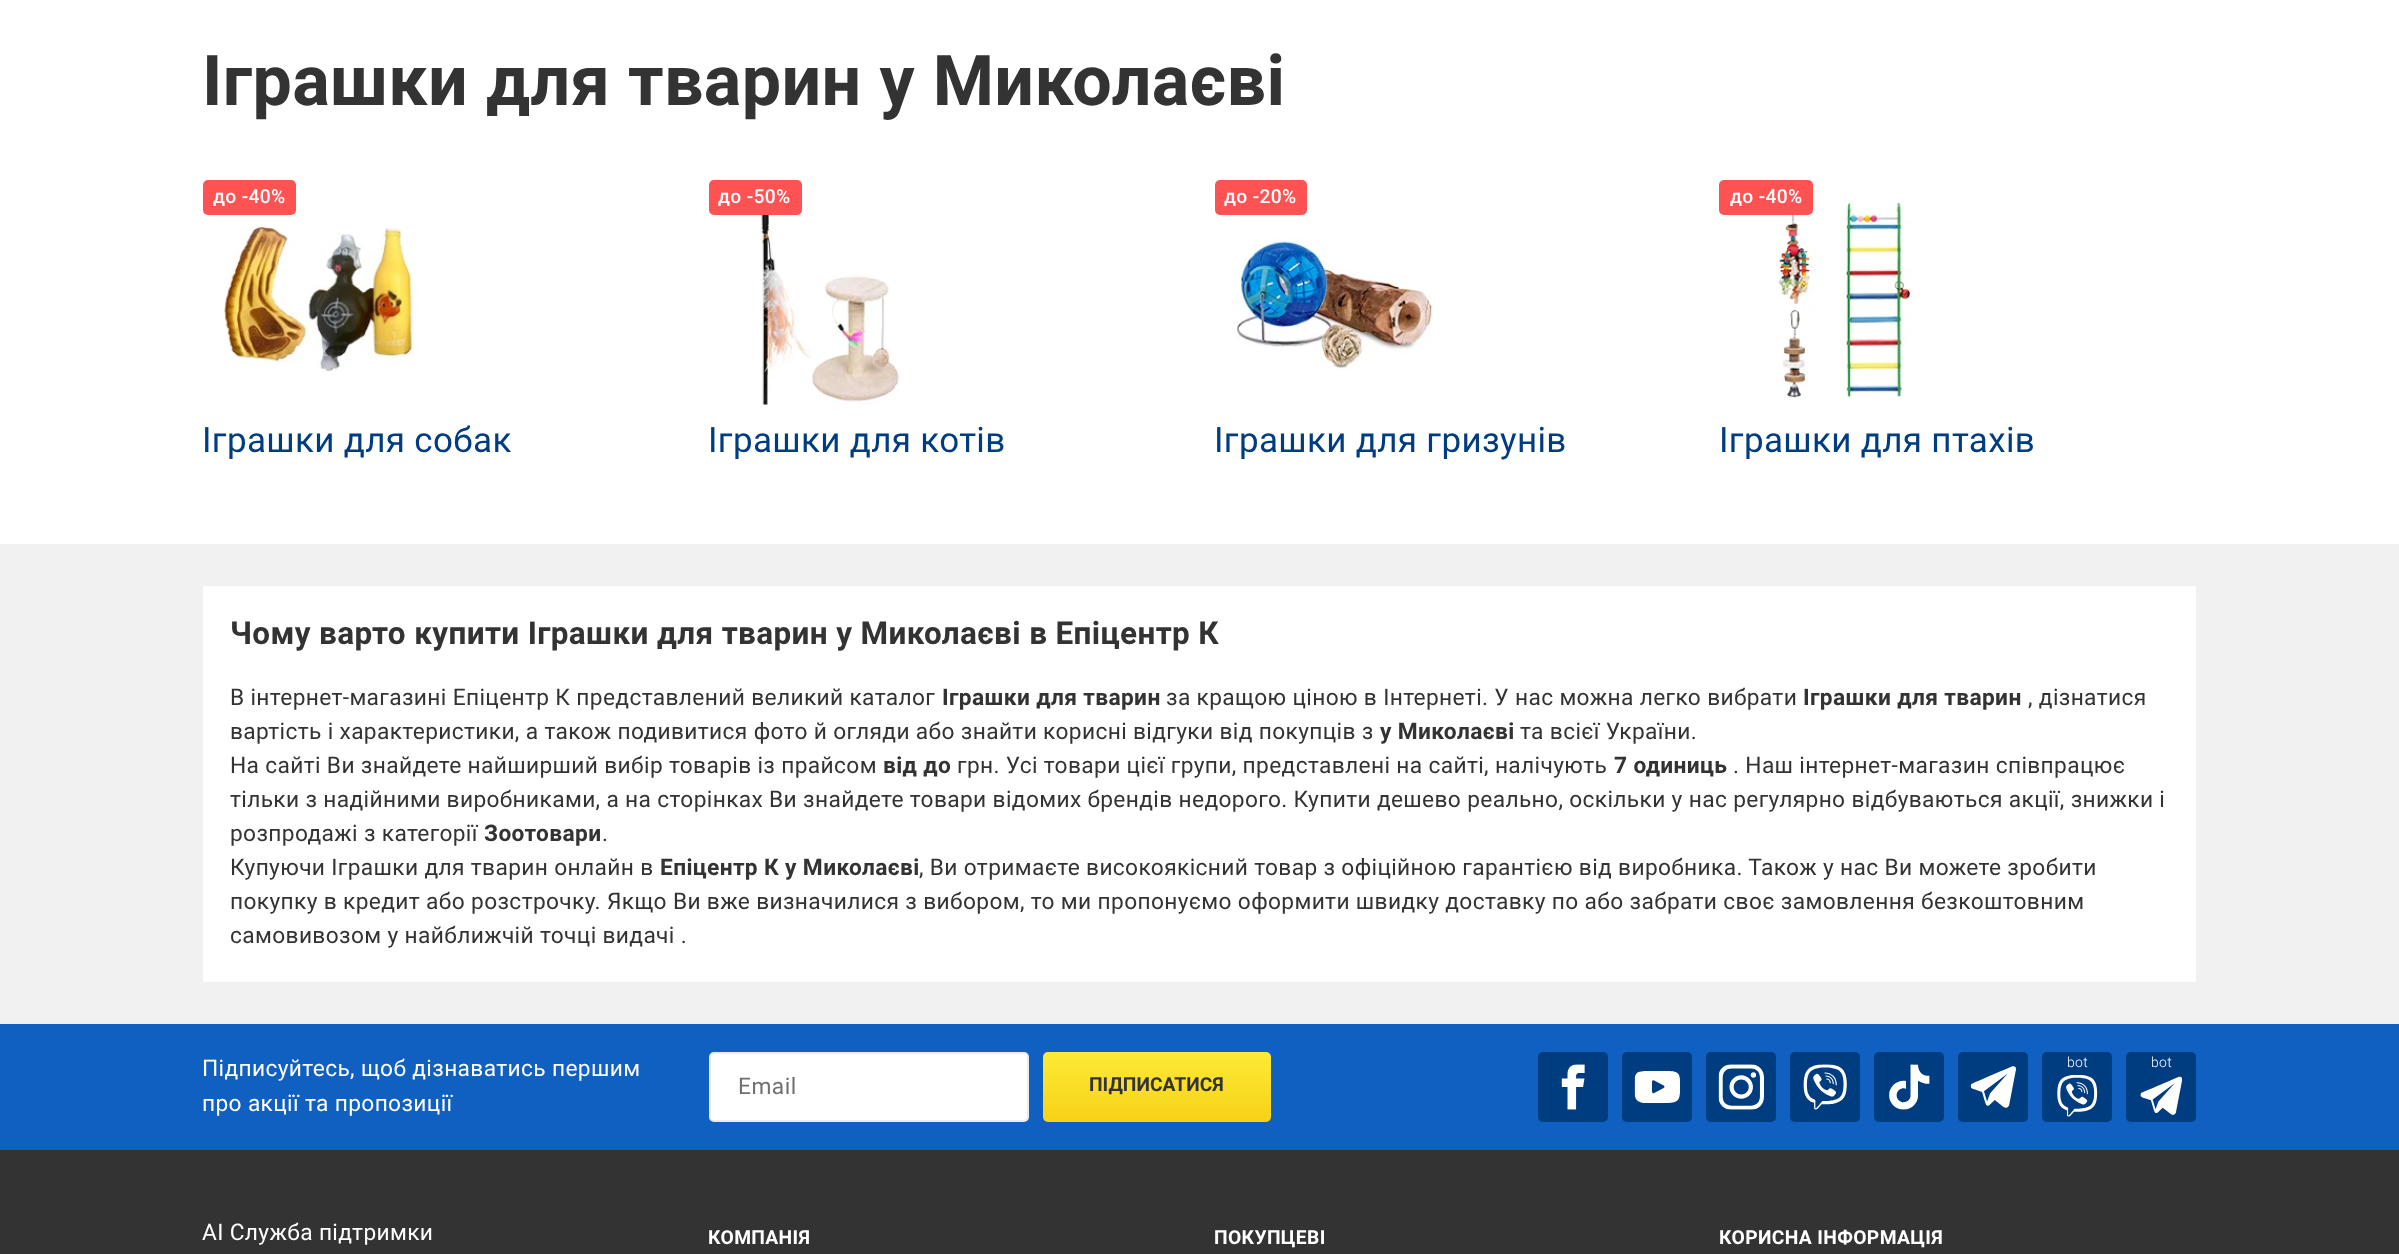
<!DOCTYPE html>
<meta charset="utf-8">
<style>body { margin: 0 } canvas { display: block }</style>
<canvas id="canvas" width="2399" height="1254"></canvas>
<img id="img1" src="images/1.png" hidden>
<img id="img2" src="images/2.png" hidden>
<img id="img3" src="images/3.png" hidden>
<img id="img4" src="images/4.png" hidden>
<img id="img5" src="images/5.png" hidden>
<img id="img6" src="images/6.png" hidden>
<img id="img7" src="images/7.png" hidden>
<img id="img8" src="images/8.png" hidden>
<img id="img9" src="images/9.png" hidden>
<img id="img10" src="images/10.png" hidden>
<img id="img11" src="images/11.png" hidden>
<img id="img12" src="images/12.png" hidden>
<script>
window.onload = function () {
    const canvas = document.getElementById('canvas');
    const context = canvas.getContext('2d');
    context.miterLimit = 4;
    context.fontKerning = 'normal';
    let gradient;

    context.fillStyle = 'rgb(241, 241, 241)';
    context.fillRect(0, 0, 2399, 1254);
    context.save();
    context.beginPath();
    context.moveTo(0, 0);
    context.lineTo(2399, 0);
    context.lineTo(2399, 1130);
    context.lineTo(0, 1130);
    context.closePath();
    context.moveTo(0, -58);
    context.lineTo(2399, -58);
    context.lineTo(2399, 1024);
    context.lineTo(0, 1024);
    context.closePath();
    context.clip('evenodd');
    context.fillStyle = 'rgba(12, 12, 13, 0.2)';
    context.filter = 'blur(35px)';
    context.beginPath();
    context.rect(0, -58, 2399, 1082);
    context.fill();
    context.filter = 'none';
    context.restore();
    context.fillStyle = 'rgb(255, 255, 255)';
    context.fillRect(0, 0, 2399, 544);
    context.fillStyle = 'rgb(255, 82, 82)';
    context.beginPath();
    context.roundRect(203, 180, 93, 35, 5);
    context.fill();
    context.drawImage(document.getElementById('img1'), 224, 224, 195, 147);
    context.drawImage(document.getElementById('img2'), 760, 199, 140, 206);
    context.beginPath();
    context.roundRect(709, 180, 93, 35, 5);
    context.fill();
    context.beginPath();
    context.roundRect(1215, 180, 92, 35, 5);
    context.fill();
    context.drawImage(document.getElementById('img3'), 1236, 237, 198, 134);
    context.drawImage(document.getElementById('img4'), 1775, 201, 138, 199);
    context.beginPath();
    context.roundRect(1719, 180, 94, 35, 5);
    context.fill();
    context.fillStyle = 'rgb(255, 255, 255)';
    context.fillRect(203, 586, 1993, 396);
    context.fillStyle = 'rgb(16, 96, 193)';
    context.fillRect(0, 1024, 2399, 126);
    context.fillStyle = 'rgb(255, 255, 255)';
    context.beginPath();
    context.roundRect(710, 1053, 318, 68, 4);
    context.fill();
    context.strokeStyle = 'rgb(235, 235, 235)';
    context.lineWidth = 2;
    context.stroke();
    gradient = context.createLinearGradient(1157, 1052, 1157, 1122);
    gradient.addColorStop(0, 'rgb(252, 235, 54)');
    gradient.addColorStop(1, 'rgb(247, 209, 24)');
    context.fillStyle = gradient;
    context.beginPath();
    context.roundRect(1043, 1052, 228, 70, 5);
    context.fill();
    context.fillStyle = 'rgb(0, 60, 128)';
    context.beginPath();
    context.roundRect(1538, 1052, 70, 70, 5);
    context.fill();
    context.drawImage(document.getElementById('img5'), 1561, 1064, 24, 46);
    context.beginPath();
    context.roundRect(1622, 1052, 70, 70, 5);
    context.fill();
    context.drawImage(document.getElementById('img6'), 1634, 1071, 46, 32);
    context.beginPath();
    context.roundRect(1706, 1052, 70, 70, 5);
    context.fill();
    context.drawImage(document.getElementById('img7'), 1718, 1064, 46, 46);
    context.beginPath();
    context.roundRect(1790, 1052, 70, 70, 5);
    context.fill();
    context.drawImage(document.getElementById('img8'), 1803, 1064, 44, 46);
    context.beginPath();
    context.roundRect(1874, 1052, 70, 70, 5);
    context.fill();
    context.drawImage(document.getElementById('img9'), 1889, 1064, 41, 46);
    context.beginPath();
    context.roundRect(1958, 1052, 70, 70, 5);
    context.fill();
    context.drawImage(document.getElementById('img10'), 1970, 1066, 46, 42);
    context.beginPath();
    context.roundRect(2042, 1052, 70, 70, 5);
    context.fill();
    context.drawImage(document.getElementById('img11'), 2057, 1075, 41, 42);
    context.beginPath();
    context.roundRect(2126, 1052, 70, 70, 5);
    context.fill();
    context.drawImage(document.getElementById('img12'), 2140, 1076, 42, 39);
    context.fillStyle = 'rgb(51, 51, 51)';
    context.fillRect(0, 1150, 2399, 104);
    context.letterSpacing = '0.35px';
    context.font = 'bold 70px Roboto';
    context.fillText('Іграшки для тварин у Миколаєві', 202, 105);
    context.font = '500 19.25px Roboto';
    context.fillStyle = 'rgb(255, 255, 255)';
    context.fillText('до -40%', 213, 203);
    context.font = '35px Roboto';
    context.fillStyle = 'rgb(0, 60, 128)';
    context.fillText('Іграшки для собак', 202, 452);
    context.font = '500 19.25px Roboto';
    context.fillStyle = 'rgb(255, 255, 255)';
    context.fillText('до -50%', 718, 203);
    context.font = '35px Roboto';
    context.fillStyle = 'rgb(0, 60, 128)';
    context.fillText('Іграшки для котів', 708, 452);
    context.font = '500 19.25px Roboto';
    context.fillStyle = 'rgb(255, 255, 255)';
    context.fillText('до -20%', 1224, 203);
    context.font = '35px Roboto';
    context.fillStyle = 'rgb(0, 60, 128)';
    context.fillText('Іграшки для гризунів', 1214, 452);
    context.font = '500 19.25px Roboto';
    context.fillStyle = 'rgb(255, 255, 255)';
    context.fillText('до -40%', 1730, 203);
    context.font = '35px Roboto';
    context.fillStyle = 'rgb(0, 60, 128)';
    context.fillText('Іграшки для птахів', 1719, 452);
    context.font = 'bold 31.5px Roboto';
    context.fillStyle = 'rgb(51, 51, 51)';
    context.fillText('Чому варто купити Іграшки для тварин у Миколаєві в Епіцентр К', 230, 644);
    context.font = '22.75px Roboto';
    context.fillText('В інтернет-магазині Епіцентр К представлений великий каталог', 230, 705);
    context.font = 'bold 22.75px Roboto';
    context.fillText('Іграшки для тварин', 942, 705);
    context.font = '22.75px Roboto';
    context.fillText('за кращою ціною в Інтернеті. У нас можна легко вибрати', 1166, 705);
    context.font = 'bold 22.75px Roboto';
    context.fillText('Іграшки для тварин', 1803, 705);
    context.font = '22.75px Roboto';
    context.fillText(', дізнатися', 2028, 705);
    context.fillText('вартість і характеристики, а також подивитися фото й огляди або знайти корисні відгуки від покупців з', 230, 739);
    context.font = 'bold 22.75px Roboto';
    context.fillText('у Миколаєві', 1380, 739);
    context.font = '22.75px Roboto';
    context.fillText('та всієї України.', 1520, 739);
    context.fillText('На сайті Ви знайдете найширший вибір товарів із прайсом', 230, 773);
    context.font = 'bold 22.75px Roboto';
    context.fillText('від до', 883, 773);
    context.font = '22.75px Roboto';
    context.fillText('грн. Усі товари цієї групи, представлені на сайті, налічують', 957, 773);
    context.font = 'bold 22.75px Roboto';
    context.fillText('7 одиниць', 1614, 773);
    context.font = '22.75px Roboto';
    context.fillText('. Наш інтернет-магазин співпрацює', 1733, 773);
    context.fillText('тільки з надійними виробниками, а на сторінках Ви знайдете товари відомих брендів недорого. Купити дешево реально, оскільки у нас регулярно відбуваються акції, знижки і', 230, 807);
    context.fillText('розпродажі з категорії', 230, 841);
    context.font = 'bold 22.75px Roboto';
    context.fillText('Зоотовари', 484, 841);
    context.font = '22.75px Roboto';
    context.fillText('.', 602, 841);
    context.fillText('Купуючи Іграшки для тварин онлайн в', 230, 875);
    context.font = 'bold 22.75px Roboto';
    context.fillText('Епіцентр К у Миколаєві', 660, 875);
    context.font = '22.75px Roboto';
    context.fillText(', Ви отримаєте високоякісний товар з офіційною гарантією від виробника. Також у нас Ви можете зробити', 919, 875);
    context.fillText('покупку в кредит або розстрочку. Якщо Ви вже визначилися з вибором, то ми пропонуємо оформити швидку доставку по або забрати своє замовлення безкоштовним', 230, 909);
    context.fillText('самовивозом у найближчій точці видачі .', 230, 943);
    context.fillStyle = 'rgb(255, 255, 255)';
    context.fillText('Підписуйтесь, щоб дізнаватись першим', 202, 1076);
    context.fillText('про акції та пропозиції', 202, 1111);
    context.letterSpacing = '0.5px';
    context.fillStyle = 'rgb(112, 112, 112)';
    context.fillText('Email', 738, 1094);
    context.letterSpacing = '0px';
    context.font = 'bold 19.25px Roboto';
    context.fillStyle = 'rgb(51, 51, 51)';
    context.fillText('ПІДПИСАТИСЯ', 1089, 1091);
    context.letterSpacing = '0.35px';
    context.font = '300 14px Roboto';
    context.fillStyle = 'rgb(255, 255, 255)';
    context.fillText('bot', 2067, 1067);
    context.fillText('bot', 2151, 1067);
    context.font = '22.75px Roboto';
    context.fillText('АІ Служба підтримки', 202, 1240);
    context.font = 'bold 19.25px Roboto';
    context.fillText('КОМПАНІЯ', 708, 1244);
    context.fillText('ПОКУПЦЕВІ', 1214, 1244);
    context.fillText('КОРИСНА ІНФОРМАЦІЯ', 1719, 1244);
};
</script>
